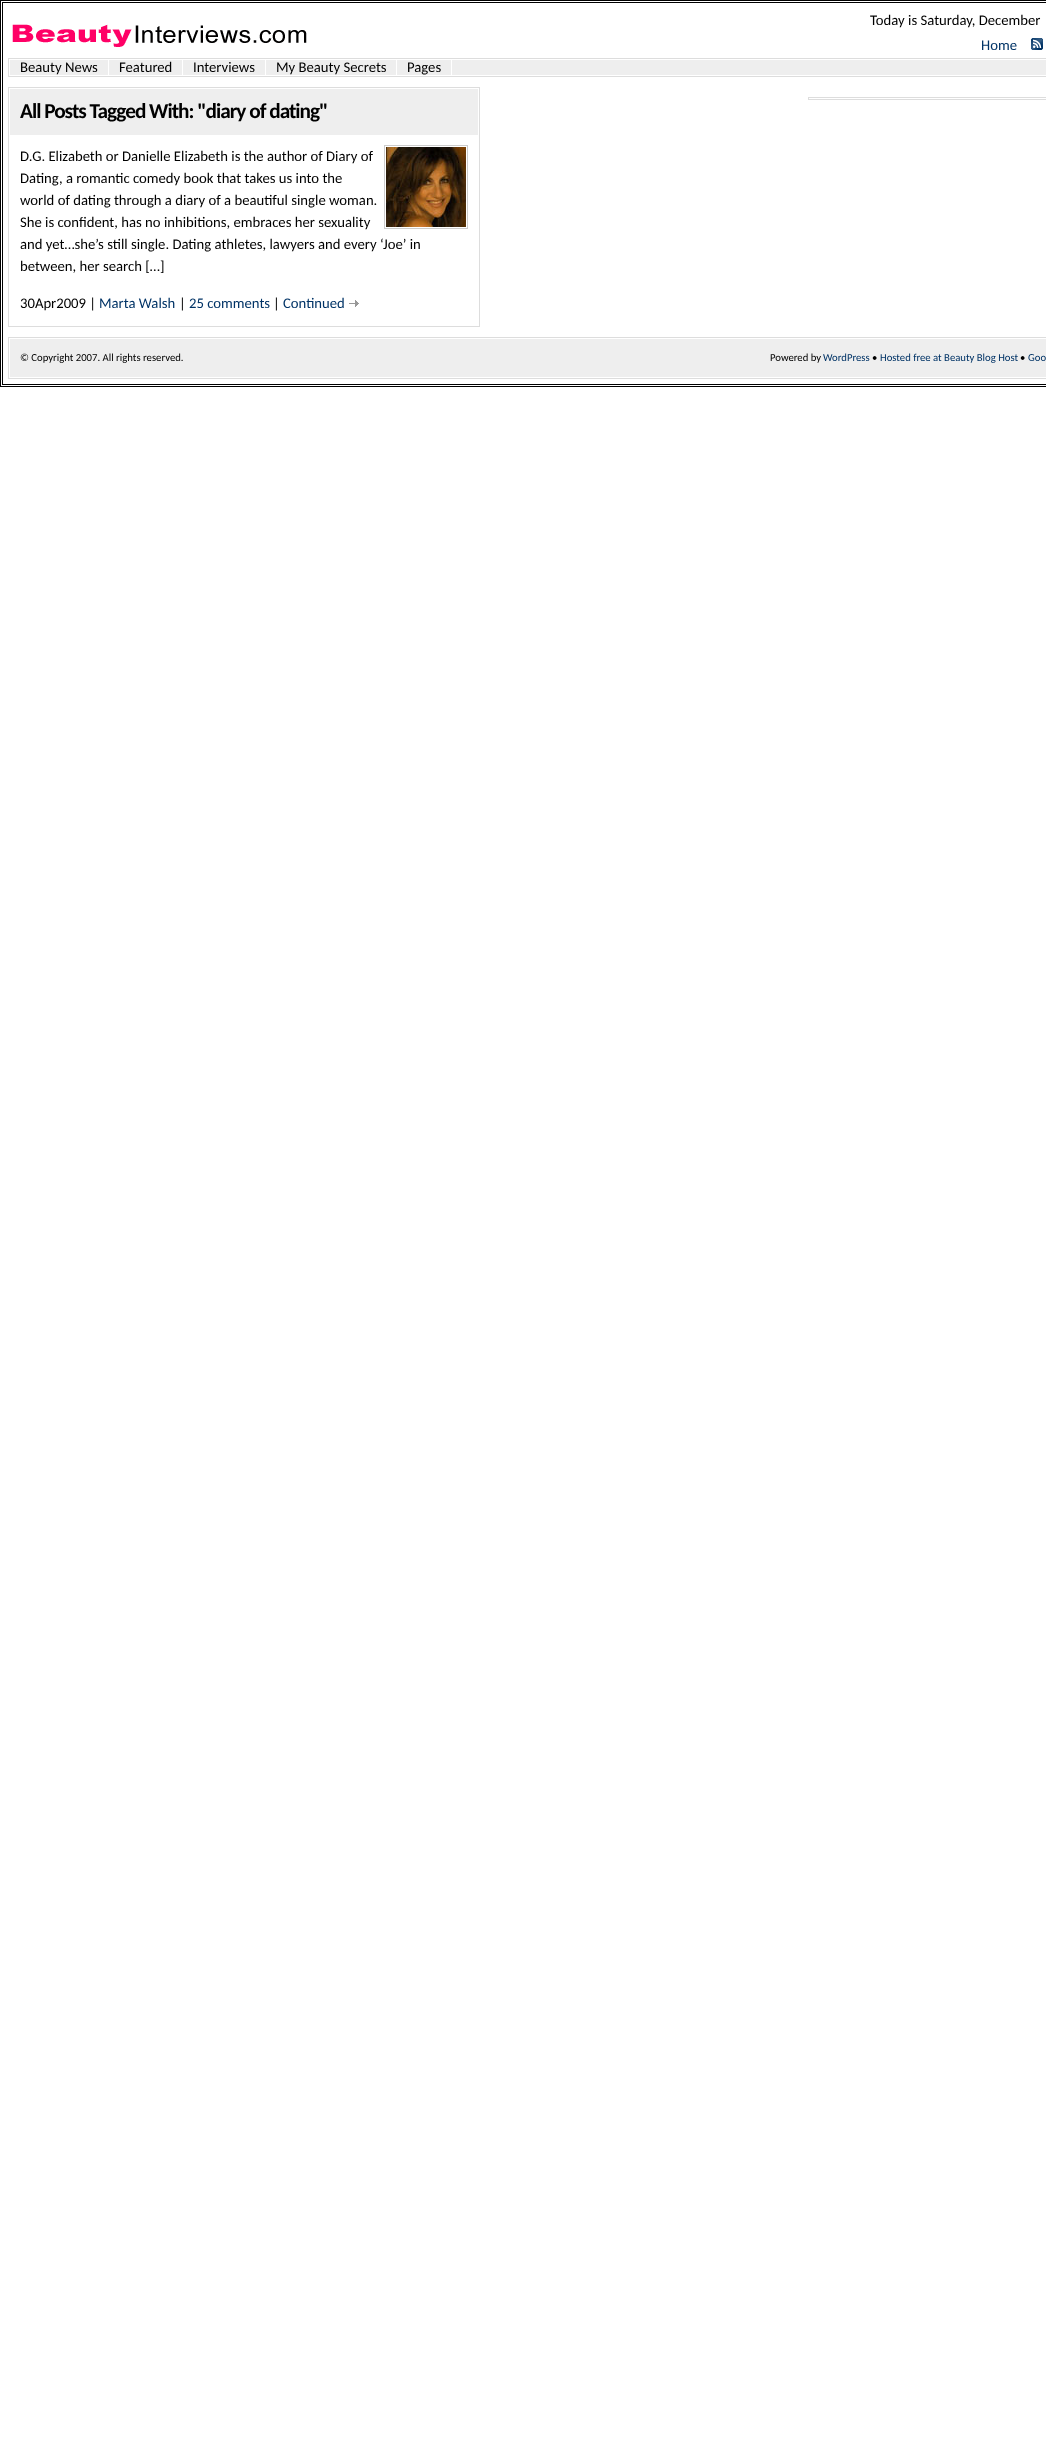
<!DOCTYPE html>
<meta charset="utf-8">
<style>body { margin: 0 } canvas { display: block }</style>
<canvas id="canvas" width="1046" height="2462"></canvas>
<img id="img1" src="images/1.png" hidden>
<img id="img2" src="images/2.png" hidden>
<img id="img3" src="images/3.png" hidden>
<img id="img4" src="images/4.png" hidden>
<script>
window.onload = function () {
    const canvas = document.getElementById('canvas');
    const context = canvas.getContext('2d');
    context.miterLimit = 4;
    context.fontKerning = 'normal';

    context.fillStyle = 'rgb(255, 255, 255)';
    context.fillRect(0, 0, 1046, 2462);
    context.strokeStyle = 'rgb(0, 0, 0)';
    context.strokeRect(0.5, 0.5, 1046, 386);
    context.strokeRect(2.5, 2.5, 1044, 382);
    context.drawImage(document.getElementById('img1'), 12, 24, 295, 23);
    context.drawImage(document.getElementById('img2'), 1031, 38, 12, 12);
    context.strokeStyle = 'rgb(221, 221, 221)';
    context.strokeRect(8.5, 58.5, 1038, 18);
    context.fillStyle = 'rgb(238, 238, 238)';
    context.fillRect(10, 60, 1036, 15);
    context.fillStyle = 'rgb(255, 255, 255)';
    context.fillRect(108, 60, 1, 15);
    context.fillRect(182, 60, 1, 15);
    context.fillRect(265, 60, 1, 15);
    context.fillRect(396, 60, 1, 15);
    context.fillRect(451, 60, 1, 15);
    context.strokeRect(808.5, 97.5, 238, 2);
    context.strokeRect(8.5, 87.5, 471, 239);
    context.fillStyle = 'rgb(238, 238, 238)';
    context.fillRect(10, 89, 468, 46);
    context.strokeStyle = 'rgb(204, 204, 204)';
    context.strokeRect(384.5, 145.5, 83, 83);
    context.drawImage(document.getElementById('img3'), 386, 147, 80, 80);
    context.drawImage(document.getElementById('img4'), 349, 300, 10, 7);
    context.strokeStyle = 'rgb(221, 221, 221)';
    context.strokeRect(8.5, 337.5, 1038, 41);
    context.fillRect(10, 339, 1036, 38);
    context.font = '14.7px Carlito';
    context.fillStyle = 'rgb(0, 0, 0)';
    context.fillText('Today is Saturday, December', 870, 25);
    context.fillStyle = 'rgb(0, 51, 102)';
    context.fillText('Home', 981, 50);
    context.fillStyle = 'rgb(0, 0, 0)';
    context.fillText('Beauty News', 20, 72);
    context.fillText('Featured', 119, 72);
    context.fillText('Interviews', 193, 72);
    context.fillText('My Beauty Secrets', 276, 72);
    context.fillText('Pages', 407, 72);
    context.letterSpacing = '-1px';
    context.font = 'bold 21.3px Carlito';
    context.fillText('All Posts Tagged With: "diary of dating"', 20, 118);
    context.letterSpacing = '0px';
    context.font = '14.7px Carlito';
    context.fillText('D.G. Elizabeth or Danielle Elizabeth is the author of Diary of', 20, 161);
    context.fillText('Dating, a romantic comedy book that takes us into the', 20, 183);
    context.fillText('world of dating through a diary of a beautiful single woman.', 20, 205);
    context.fillText('She is confident, has no inhibitions, embraces her sexuality', 20, 227);
    context.fillText('and yet…she’s still single. Dating athletes, lawyers and every ‘Joe’ in', 20, 249);
    context.fillText('between, her search […]', 20, 271);
    context.fillText('30Apr2009 |', 20, 308);
    context.fillStyle = 'rgb(0, 51, 102)';
    context.fillText('Marta Walsh', 99, 308);
    context.fillStyle = 'rgb(0, 0, 0)';
    context.fillText('|', 179, 308);
    context.fillStyle = 'rgb(0, 51, 102)';
    context.fillText('25 comments', 189, 308);
    context.fillStyle = 'rgb(0, 0, 0)';
    context.fillText('|', 273, 308);
    context.fillStyle = 'rgb(0, 51, 102)';
    context.fillText('Continued', 283, 308);
    context.font = '10.7px Carlito';
    context.fillStyle = 'rgb(0, 0, 0)';
    context.fillText('© Copyright 2007. All rights reserved.', 20, 361);
    context.fillText('Powered by', 770, 361);
    context.fillStyle = 'rgb(0, 51, 102)';
    context.fillText('WordPress', 823, 361);
    context.fillStyle = 'rgb(0, 0, 0)';
    context.fillText('•', 872, 361);
    context.fillStyle = 'rgb(0, 51, 102)';
    context.fillText('Hosted free at Beauty Blog Host', 880, 361);
    context.fillStyle = 'rgb(0, 0, 0)';
    context.fillText('•', 1020, 361);
    context.fillStyle = 'rgb(0, 51, 102)';
    context.fillText('Goo', 1028, 361);
};
</script>
